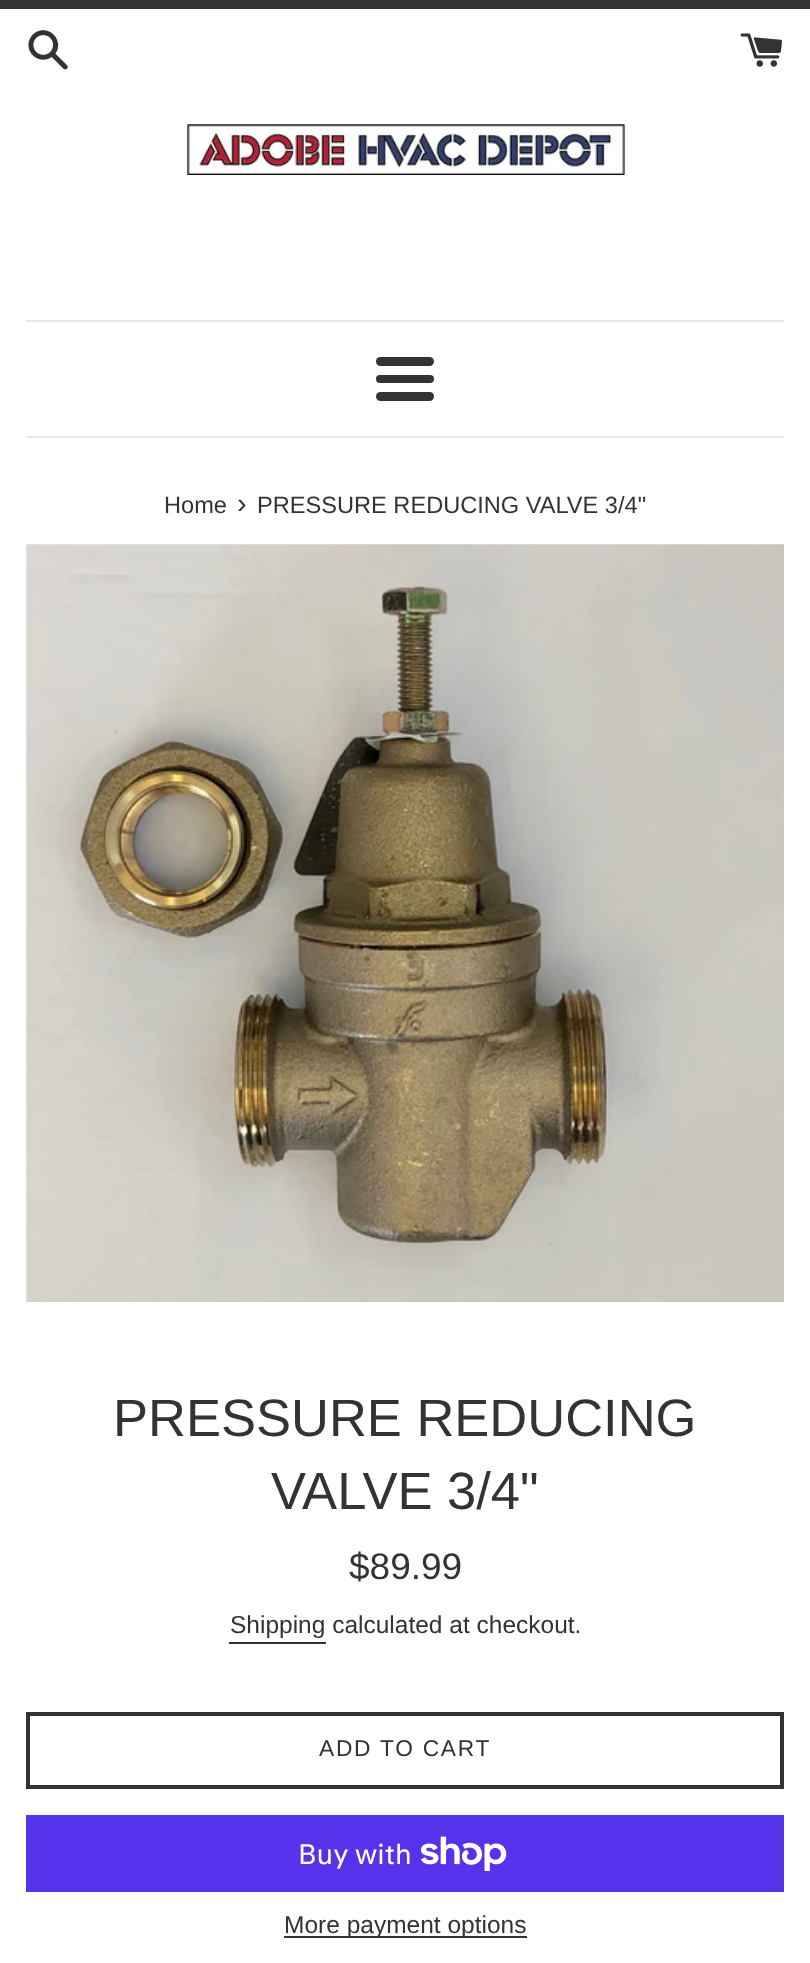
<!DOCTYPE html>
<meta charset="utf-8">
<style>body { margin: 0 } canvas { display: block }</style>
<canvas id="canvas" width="810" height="1963"></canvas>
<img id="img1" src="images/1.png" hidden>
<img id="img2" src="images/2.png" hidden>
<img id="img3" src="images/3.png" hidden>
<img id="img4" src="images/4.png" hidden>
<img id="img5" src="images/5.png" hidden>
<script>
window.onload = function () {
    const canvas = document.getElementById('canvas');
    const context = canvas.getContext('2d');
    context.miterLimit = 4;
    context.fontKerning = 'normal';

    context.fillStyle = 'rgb(255, 255, 255)';
    context.fillRect(0, 0, 810, 1963);
    context.fillStyle = 'rgb(51, 51, 51)';
    context.fillRect(0, 0, 810, 9);
    context.drawImage(document.getElementById('img1'), 28, 30, 40, 40);
    context.drawImage(document.getElementById('img2'), 740, 33, 42, 34);
    context.drawImage(document.getElementById('img3'), 187, 124, 438, 51);
    context.fillStyle = 'rgb(232, 232, 232)';
    context.fillRect(26, 320, 758, 2);
    context.fillStyle = 'rgb(51, 51, 51)';
    context.beginPath();
    context.roundRect(376, 357, 58, 9, 4.5);
    context.fill();
    context.beginPath();
    context.roundRect(376, 375, 58, 8, 4);
    context.fill();
    context.beginPath();
    context.roundRect(376, 392, 58, 9, 4.5);
    context.fill();
    context.fillStyle = 'rgb(232, 232, 232)';
    context.fillRect(26, 436, 758, 2);
    context.drawImage(document.getElementById('img4'), 26, 544, 758, 758);
    context.fillStyle = 'rgb(51, 51, 51)';
    context.fillRect(229, 1642, 97, 2);
    context.strokeStyle = 'rgb(51, 51, 51)';
    context.lineWidth = 4;
    context.strokeRect(28, 1714, 754, 73);
    context.fillStyle = 'rgb(84, 51, 235)';
    context.fillRect(26, 1815, 758, 77);
    context.drawImage(document.getElementById('img5'), 421, 1836, 86, 35);
    context.fillStyle = 'rgb(51, 51, 51)';
    context.fillRect(284, 1936, 243, 2);
    context.font = '23.6px Liberation Sans';
    context.fillText('Home', 164, 513);
    context.font = '29px Liberation Sans';
    context.fillText('›', 237, 513);
    context.font = '23.6px Liberation Sans';
    context.fillText('PRESSURE REDUCING VALVE 3/4"', 257, 513);
    context.font = '52.5px Arimo';
    context.fillText('PRESSURE REDUCING', 113, 1436);
    context.fillText('VALVE 3/4"', 271, 1509);
    context.font = '37px Liberation Sans';
    context.fillText('$89.99', 349, 1579);
    context.font = '24.5px Liberation Sans';
    context.fillText('Shipping calculated at checkout.', 230, 1633);
    context.letterSpacing = '1.75px';
    context.font = '22.75px Liberation Sans';
    context.fillText('ADD TO CART', 319, 1756);
    context.letterSpacing = '0px';
    context.font = '28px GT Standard';
    context.fillStyle = 'rgb(255, 255, 255)';
    context.fillText('Buy with', 298, 1864);
    context.font = '24.5px Liberation Sans';
    context.fillStyle = 'rgb(51, 51, 51)';
    context.fillText('More payment options', 284, 1933);
};
</script>
